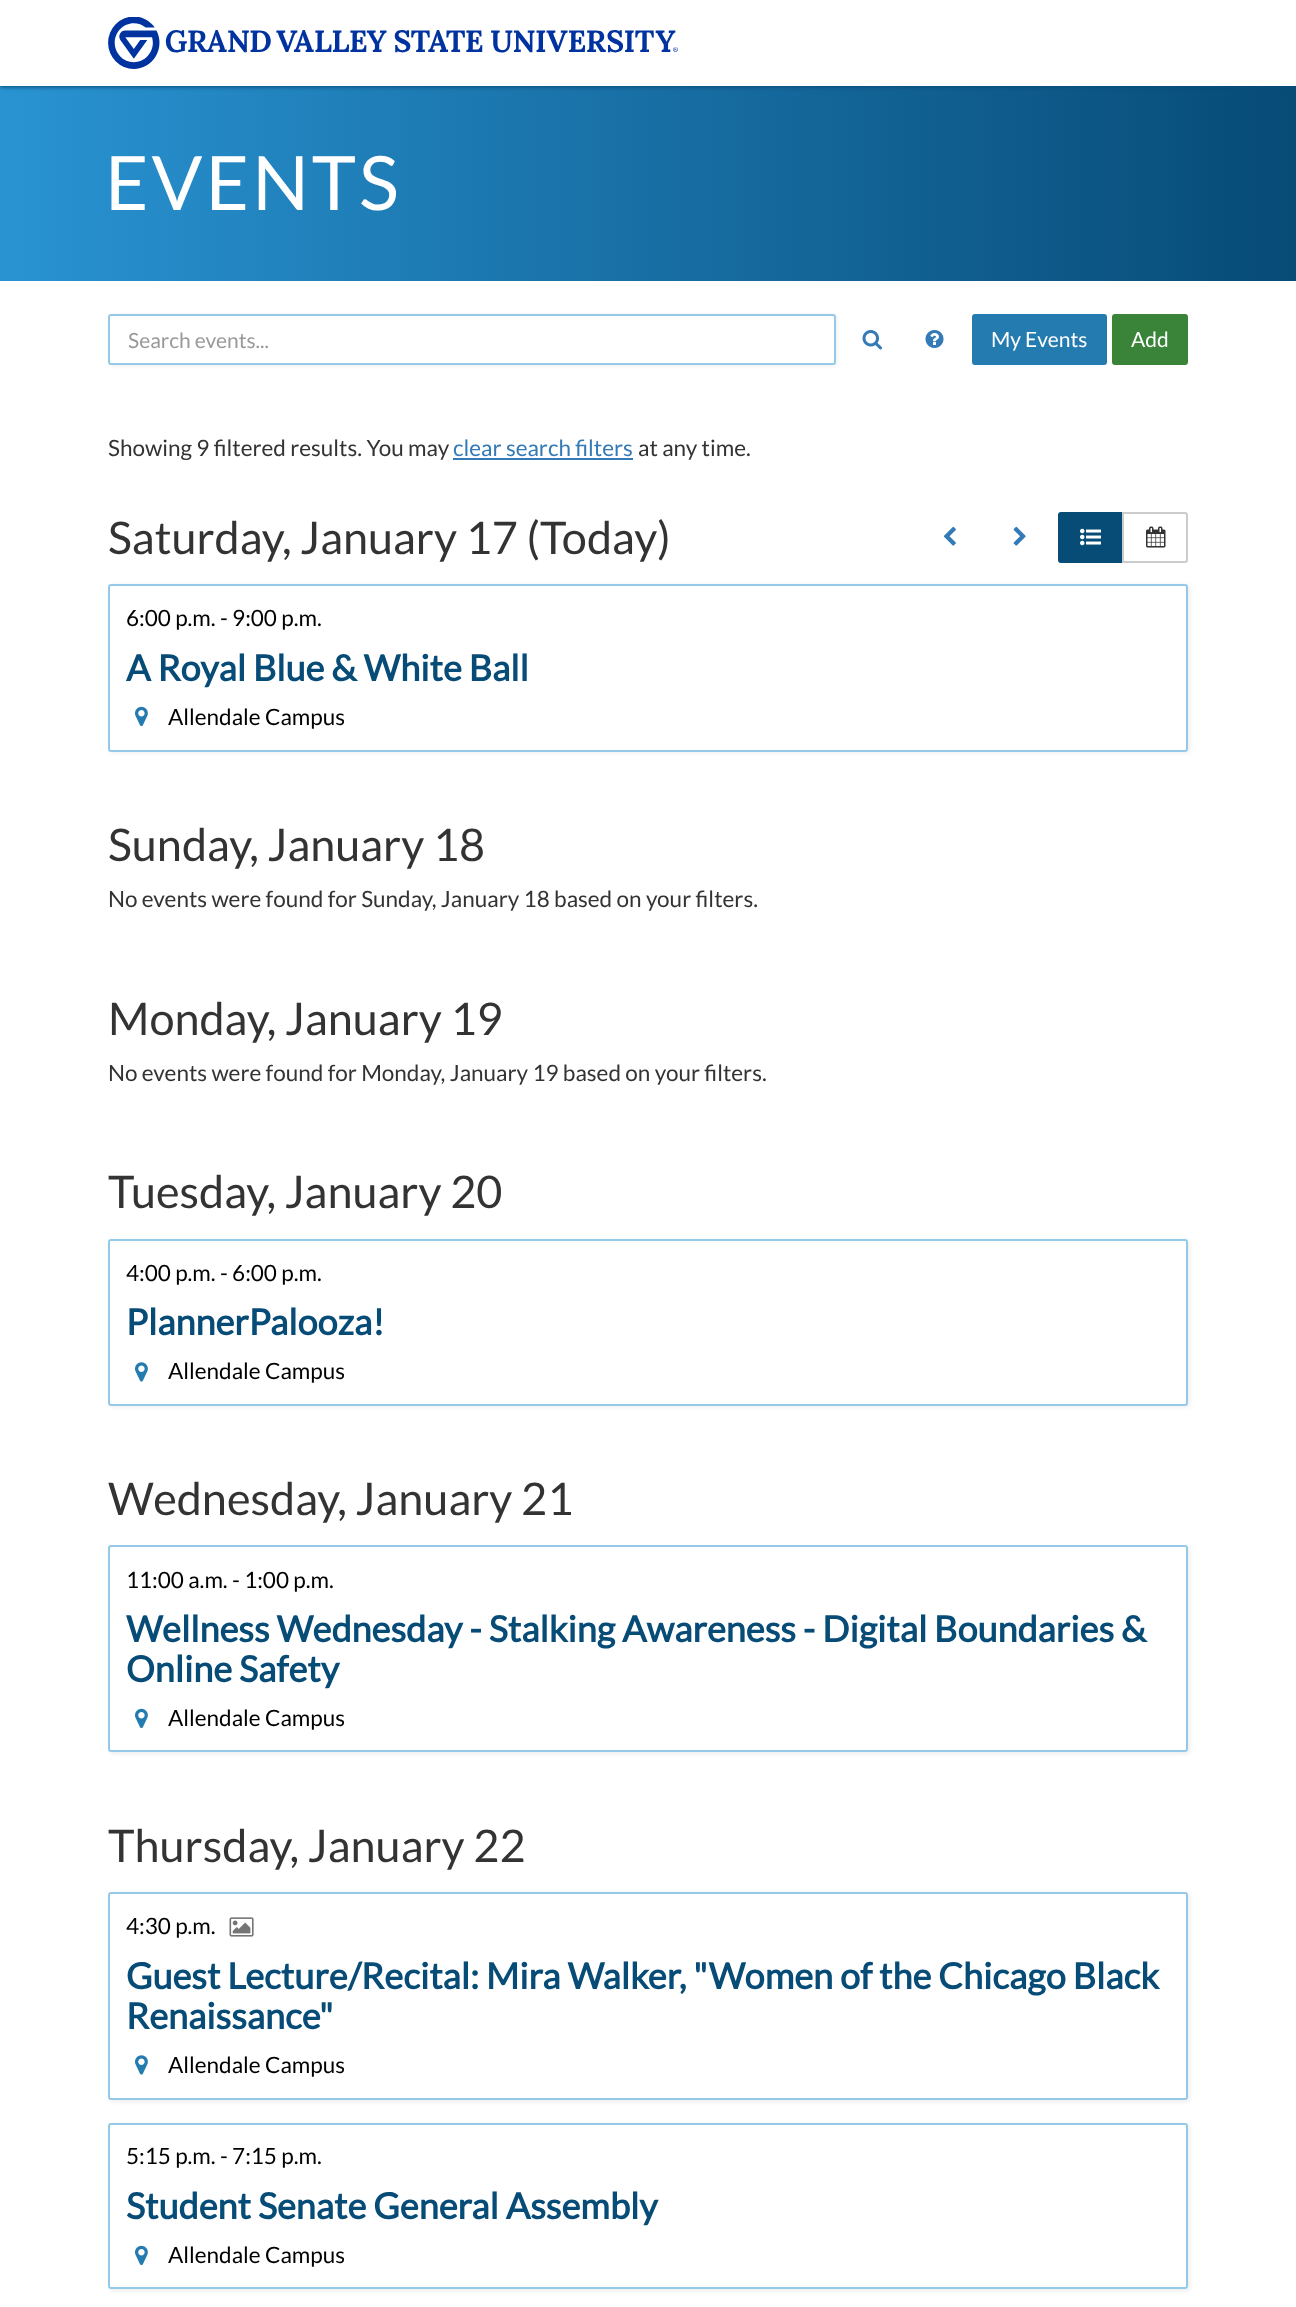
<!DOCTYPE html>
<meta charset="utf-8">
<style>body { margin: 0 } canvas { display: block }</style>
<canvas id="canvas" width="1296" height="2307"></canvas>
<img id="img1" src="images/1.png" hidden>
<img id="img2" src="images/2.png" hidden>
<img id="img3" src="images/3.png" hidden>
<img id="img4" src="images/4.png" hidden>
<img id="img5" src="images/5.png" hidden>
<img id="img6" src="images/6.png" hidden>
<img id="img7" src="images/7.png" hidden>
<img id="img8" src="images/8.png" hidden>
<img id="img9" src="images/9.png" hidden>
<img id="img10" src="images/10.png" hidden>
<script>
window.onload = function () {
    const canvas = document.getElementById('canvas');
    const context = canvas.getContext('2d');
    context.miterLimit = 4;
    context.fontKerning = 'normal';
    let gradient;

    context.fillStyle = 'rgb(255, 255, 255)';
    context.fillRect(0, 0, 1296, 2307);
    gradient = context.createLinearGradient(0, 140, 1296, 140);
    gradient.addColorStop(0, 'rgb(41, 147, 210)');
    gradient.addColorStop(1, 'rgb(7, 75, 119)');
    context.fillStyle = gradient;
    context.fillRect(0, 86, 1296, 195);
    context.fillStyle = 'rgb(7, 75, 119)';
    context.filter = 'blur(2px)';
    context.beginPath();
    context.rect(0, 2, 1296, 85);
    context.fill();
    context.filter = 'none';
    context.fillStyle = 'rgb(255, 255, 255)';
    context.fillRect(0, 0, 1296, 86);
    context.drawImage(document.getElementById('img1'), 108, 17, 570, 52);
    context.fillStyle = 'rgb(238, 238, 238)';
    context.filter = 'blur(2px)';
    context.beginPath();
    context.roundRect(110, 315, 727, 51, 3);
    context.fill();
    context.filter = 'none';
    context.fillStyle = 'rgb(255, 255, 255)';
    context.beginPath();
    context.roundRect(109, 315, 726, 49, 2);
    context.fill();
    context.strokeStyle = 'rgb(148, 201, 233)';
    context.lineWidth = 2;
    context.stroke();
    context.drawImage(document.getElementById('img2'), 862, 330, 20, 20);
    context.drawImage(document.getElementById('img3'), 925, 330, 19, 18);
    context.fillStyle = 'rgb(35, 123, 175)';
    context.beginPath();
    context.roundRect(973, 315, 133, 49, 2);
    context.fill();
    context.strokeStyle = 'rgb(35, 123, 175)';
    context.stroke();
    context.fillStyle = 'rgb(57, 132, 57)';
    context.beginPath();
    context.roundRect(1113, 315, 74, 49, 2);
    context.fill();
    context.strokeStyle = 'rgb(57, 132, 57)';
    context.stroke();
    context.fillStyle = 'rgb(51, 122, 183)';
    context.fillRect(453, 458, 180, 2);
    context.drawImage(document.getElementById('img4'), 943, 526, 13, 20);
    context.drawImage(document.getElementById('img5'), 1013, 526, 13, 20);
    context.fillStyle = 'rgb(7, 75, 119)';
    context.beginPath();
    context.roundRect(1059, 513, 64, 49, [2, 0, 0, 2]);
    context.fill();
    context.strokeStyle = 'rgb(7, 75, 119)';
    context.stroke();
    context.drawImage(document.getElementById('img6'), 1080, 528, 21, 18);
    context.fillStyle = 'rgb(255, 255, 255)';
    context.beginPath();
    context.roundRect(1123, 513, 64, 49, [0, 2, 2, 0]);
    context.fill();
    context.strokeStyle = 'rgb(204, 204, 204)';
    context.stroke();
    context.drawImage(document.getElementById('img7'), 1146, 526, 20, 22);
    context.save();
    context.beginPath();
    context.moveTo(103, 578);
    context.lineTo(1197, 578);
    context.lineTo(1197, 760);
    context.lineTo(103, 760);
    context.closePath();
    context.moveTo(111, 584);
    context.lineTo(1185, 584);
    context.bezierCurveTo(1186.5, 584, 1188, 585.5, 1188, 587);
    context.lineTo(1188, 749);
    context.bezierCurveTo(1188, 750.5, 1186.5, 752, 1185, 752);
    context.lineTo(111, 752);
    context.bezierCurveTo(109.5, 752, 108, 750.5, 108, 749);
    context.lineTo(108, 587);
    context.bezierCurveTo(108, 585.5, 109.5, 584, 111, 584);
    context.closePath();
    context.clip('evenodd');
    context.fillStyle = 'rgb(238, 238, 238)';
    context.filter = 'blur(2px)';
    context.beginPath();
    context.roundRect(110, 585, 1080, 168, 3);
    context.fill();
    context.filter = 'none';
    context.restore();
    context.beginPath();
    context.roundRect(109, 585, 1078, 166, 2);
    context.strokeStyle = 'rgb(148, 201, 233)';
    context.stroke();
    context.drawImage(document.getElementById('img8'), 135, 706, 13, 21);
    context.save();
    context.beginPath();
    context.moveTo(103, 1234);
    context.lineTo(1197, 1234);
    context.lineTo(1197, 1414);
    context.lineTo(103, 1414);
    context.closePath();
    context.moveTo(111, 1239);
    context.lineTo(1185, 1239);
    context.bezierCurveTo(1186.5, 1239, 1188, 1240.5, 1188, 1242);
    context.lineTo(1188, 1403);
    context.bezierCurveTo(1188, 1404.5, 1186.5, 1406, 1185, 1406);
    context.lineTo(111, 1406);
    context.bezierCurveTo(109.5, 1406, 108, 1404.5, 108, 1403);
    context.lineTo(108, 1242);
    context.bezierCurveTo(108, 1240.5, 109.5, 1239, 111, 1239);
    context.closePath();
    context.clip('evenodd');
    context.fillStyle = 'rgb(238, 238, 238)';
    context.filter = 'blur(2px)';
    context.beginPath();
    context.roundRect(110, 1241, 1080, 166, 3);
    context.fill();
    context.filter = 'none';
    context.restore();
    context.beginPath();
    context.roundRect(109, 1240, 1078, 165, 2);
    context.stroke();
    context.drawImage(document.getElementById('img9'), 135, 1362, 13, 20);
    context.save();
    context.beginPath();
    context.moveTo(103, 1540);
    context.lineTo(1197, 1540);
    context.lineTo(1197, 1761);
    context.lineTo(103, 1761);
    context.closePath();
    context.moveTo(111, 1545);
    context.lineTo(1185, 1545);
    context.bezierCurveTo(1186.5, 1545, 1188, 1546.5, 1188, 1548);
    context.lineTo(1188, 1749);
    context.bezierCurveTo(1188, 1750.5, 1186.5, 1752, 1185, 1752);
    context.lineTo(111, 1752);
    context.bezierCurveTo(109.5, 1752, 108, 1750.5, 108, 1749);
    context.lineTo(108, 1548);
    context.bezierCurveTo(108, 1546.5, 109.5, 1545, 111, 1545);
    context.closePath();
    context.clip('evenodd');
    context.fillStyle = 'rgb(238, 238, 238)';
    context.filter = 'blur(2px)';
    context.beginPath();
    context.roundRect(110, 1547, 1080, 207, 3);
    context.fill();
    context.filter = 'none';
    context.restore();
    context.beginPath();
    context.roundRect(109, 1546, 1078, 205, 2);
    context.stroke();
    context.drawImage(document.getElementById('img8'), 135, 1708, 13, 21);
    context.save();
    context.beginPath();
    context.moveTo(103, 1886);
    context.lineTo(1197, 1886);
    context.lineTo(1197, 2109);
    context.lineTo(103, 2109);
    context.closePath();
    context.moveTo(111, 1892);
    context.lineTo(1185, 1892);
    context.bezierCurveTo(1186.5, 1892, 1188, 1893.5, 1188, 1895);
    context.lineTo(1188, 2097);
    context.bezierCurveTo(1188, 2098.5, 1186.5, 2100, 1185, 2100);
    context.lineTo(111, 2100);
    context.bezierCurveTo(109.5, 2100, 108, 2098.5, 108, 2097);
    context.lineTo(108, 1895);
    context.bezierCurveTo(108, 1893.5, 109.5, 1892, 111, 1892);
    context.closePath();
    context.clip('evenodd');
    context.fillStyle = 'rgb(238, 238, 238)';
    context.filter = 'blur(2px)';
    context.beginPath();
    context.roundRect(110, 1893, 1080, 209, 3);
    context.fill();
    context.filter = 'none';
    context.restore();
    context.beginPath();
    context.roundRect(109, 1893, 1078, 206, 2);
    context.stroke();
    context.drawImage(document.getElementById('img10'), 229, 1917, 25, 20);
    context.drawImage(document.getElementById('img9'), 135, 2055, 13, 20);
    context.save();
    context.beginPath();
    context.moveTo(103, 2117);
    context.lineTo(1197, 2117);
    context.lineTo(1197, 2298);
    context.lineTo(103, 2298);
    context.closePath();
    context.moveTo(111, 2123);
    context.lineTo(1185, 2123);
    context.bezierCurveTo(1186.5, 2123, 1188, 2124.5, 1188, 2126);
    context.lineTo(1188, 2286);
    context.bezierCurveTo(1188, 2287.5, 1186.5, 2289, 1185, 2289);
    context.lineTo(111, 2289);
    context.bezierCurveTo(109.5, 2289, 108, 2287.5, 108, 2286);
    context.lineTo(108, 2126);
    context.bezierCurveTo(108, 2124.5, 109.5, 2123, 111, 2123);
    context.closePath();
    context.clip('evenodd');
    context.fillStyle = 'rgb(238, 238, 238)';
    context.filter = 'blur(2px)';
    context.beginPath();
    context.roundRect(110, 2124, 1080, 167, 3);
    context.fill();
    context.filter = 'none';
    context.restore();
    context.beginPath();
    context.roundRect(109, 2124, 1078, 164, 2);
    context.stroke();
    context.drawImage(document.getElementById('img8'), 135, 2245, 13, 21);
    context.letterSpacing = '3px';
    context.font = '75px Lato';
    context.fillText('EVENTS', 105, 210);
    context.letterSpacing = '0px';
    context.font = '21px Lato';
    context.fillStyle = 'rgb(153, 153, 153)';
    context.fillText('Search events...', 128, 348);
    context.fillStyle = 'rgb(255, 255, 255)';
    context.fillText('My Events', 991, 347);
    context.fillText('Add', 1131, 347);
    context.font = '22.5px Lato';
    context.fillStyle = 'rgb(51, 51, 51)';
    context.fillText('Showing 9 filtered results. You may', 108, 456);
    context.fillStyle = 'rgb(51, 122, 183)';
    context.fillText('clear search filters', 453, 456);
    context.fillStyle = 'rgb(51, 51, 51)';
    context.fillText('at any time.', 638, 456);
    context.font = '45px Lato';
    context.fillText('Saturday, January 17 (Today)', 108, 554);
    context.font = '22.5px Lato';
    context.fillStyle = 'rgb(0, 0, 0)';
    context.fillText('6:00 p.m. - 9:00 p.m.', 126, 626);
    context.font = 'bold 36px Lato';
    context.fillStyle = 'rgb(7, 75, 119)';
    context.fillText('A Royal Blue & White Ball', 126, 681);
    context.font = '22.5px Lato';
    context.fillStyle = 'rgb(0, 0, 0)';
    context.fillText('Allendale Campus', 168, 725);
    context.font = '45px Lato';
    context.fillStyle = 'rgb(51, 51, 51)';
    context.fillText('Sunday, January 18', 108, 861);
    context.font = '22.5px Lato';
    context.fillText('No events were found for Sunday, January 18 based on your filters.', 108, 907);
    context.font = '45px Lato';
    context.fillText('Monday, January 19', 108, 1035);
    context.font = '22.5px Lato';
    context.fillText('No events were found for Monday, January 19 based on your filters.', 108, 1081);
    context.font = '45px Lato';
    context.fillText('Tuesday, January 20', 108, 1208);
    context.font = '22.5px Lato';
    context.fillStyle = 'rgb(0, 0, 0)';
    context.fillText('4:00 p.m. - 6:00 p.m.', 126, 1281);
    context.font = 'bold 36px Lato';
    context.fillStyle = 'rgb(7, 75, 119)';
    context.fillText('PlannerPalooza!', 126, 1335);
    context.font = '22.5px Lato';
    context.fillStyle = 'rgb(0, 0, 0)';
    context.fillText('Allendale Campus', 168, 1379);
    context.font = '45px Lato';
    context.fillStyle = 'rgb(51, 51, 51)';
    context.fillText('Wednesday, January 21', 108, 1515);
    context.font = '22.5px Lato';
    context.fillStyle = 'rgb(0, 0, 0)';
    context.fillText('11:00 a.m. - 1:00 p.m.', 126, 1588);
    context.font = 'bold 36px Lato';
    context.fillStyle = 'rgb(7, 75, 119)';
    context.fillText('Wellness Wednesday - Stalking Awareness - Digital Boundaries &', 126, 1642);
    context.fillText('Online Safety', 126, 1682);
    context.font = '22.5px Lato';
    context.fillStyle = 'rgb(0, 0, 0)';
    context.fillText('Allendale Campus', 168, 1726);
    context.font = '45px Lato';
    context.fillStyle = 'rgb(51, 51, 51)';
    context.fillText('Thursday, January 22', 108, 1862);
    context.font = '22.5px Lato';
    context.fillStyle = 'rgb(0, 0, 0)';
    context.fillText('4:30 p.m.', 126, 1934);
    context.font = 'bold 36px Lato';
    context.fillStyle = 'rgb(7, 75, 119)';
    context.fillText('Guest Lecture/Recital: Mira Walker, "Women of the Chicago Black', 126, 1989);
    context.fillText('Renaissance"', 126, 2029);
    context.font = '22.5px Lato';
    context.fillStyle = 'rgb(0, 0, 0)';
    context.fillText('Allendale Campus', 168, 2073);
    context.fillText('5:15 p.m. - 7:15 p.m.', 126, 2164);
    context.font = 'bold 36px Lato';
    context.fillStyle = 'rgb(7, 75, 119)';
    context.fillText('Student Senate General Assembly', 126, 2219);
    context.font = '22.5px Lato';
    context.fillStyle = 'rgb(0, 0, 0)';
    context.fillText('Allendale Campus', 168, 2263);
};
</script>
